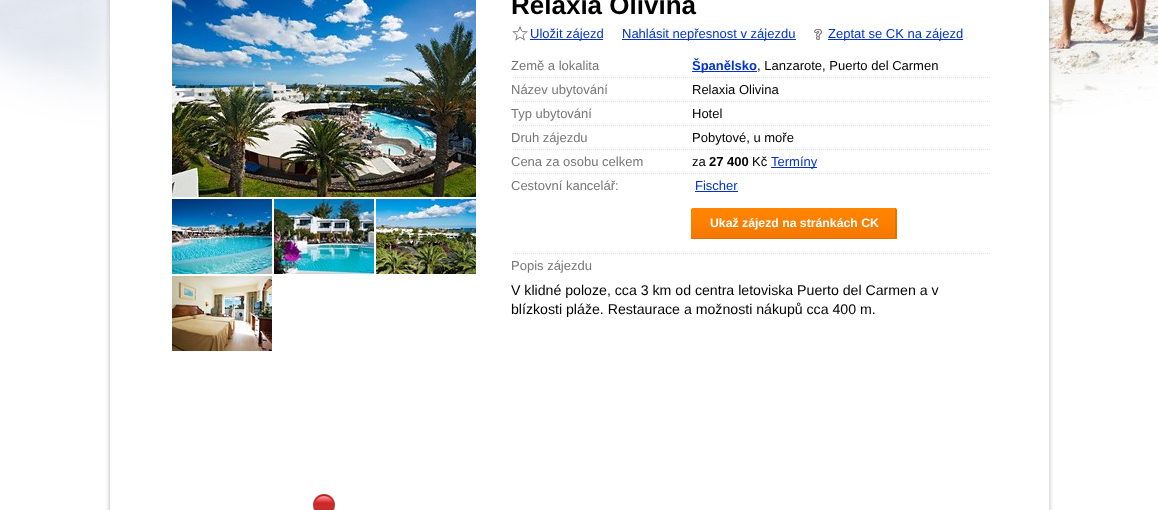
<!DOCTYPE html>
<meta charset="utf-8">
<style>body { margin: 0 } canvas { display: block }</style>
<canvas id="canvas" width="1158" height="510"></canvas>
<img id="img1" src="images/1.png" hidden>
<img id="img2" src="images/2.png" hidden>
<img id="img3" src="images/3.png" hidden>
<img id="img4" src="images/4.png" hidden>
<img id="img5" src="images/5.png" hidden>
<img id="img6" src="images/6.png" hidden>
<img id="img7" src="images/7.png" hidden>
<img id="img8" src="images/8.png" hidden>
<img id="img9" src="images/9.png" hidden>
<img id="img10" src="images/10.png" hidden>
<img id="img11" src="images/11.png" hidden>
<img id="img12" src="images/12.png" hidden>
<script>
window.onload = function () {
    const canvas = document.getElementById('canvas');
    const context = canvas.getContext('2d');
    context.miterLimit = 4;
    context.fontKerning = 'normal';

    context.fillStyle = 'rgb(255, 255, 255)';
    context.fillRect(0, 0, 1158, 510);
    context.drawImage(document.getElementById('img1'), 0, 0, 1158, 172);
    context.fillStyle = 'rgba(0, 0, 0, 0.3)';
    context.filter = 'blur(2.5px)';
    context.beginPath();
    context.roundRect(110, -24, 939, 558, 16);
    context.fill();
    context.filter = 'none';
    context.fillStyle = 'rgb(255, 255, 255)';
    context.fillRect(110, 0, 939, 510);
    context.drawImage(document.getElementById('img2'), 172, 0, 304, 197);
    context.drawImage(document.getElementById('img3'), 172, 199, 100, 75);
    context.drawImage(document.getElementById('img4'), 274, 199, 100, 75);
    context.drawImage(document.getElementById('img5'), 376, 199, 100, 75);
    context.drawImage(document.getElementById('img6'), 172, 276, 100, 75);
    context.drawImage(document.getElementById('img7'), 313, 494, 22, 16);
    context.drawImage(document.getElementById('img8'), 512, 26, 16, 15);
    context.fillStyle = 'rgb(0, 51, 204)';
    context.fillRect(530, 39, 73, 1);
    context.fillRect(622, 39, 174, 1);
    context.drawImage(document.getElementById('img9'), 814, 29, 8, 11);
    context.fillRect(828, 39, 135, 1);
    context.fillRect(692, 71, 65, 1);
    context.drawImage(document.getElementById('img10'), 513, 77, 477, 1);
    context.drawImage(document.getElementById('img10'), 513, 101, 477, 1);
    context.drawImage(document.getElementById('img10'), 513, 125, 477, 1);
    context.drawImage(document.getElementById('img10'), 513, 149, 477, 1);
    context.fillRect(771, 167, 46, 1);
    context.drawImage(document.getElementById('img10'), 513, 173, 477, 1);
    context.fillRect(695, 191, 43, 1);
    context.drawImage(document.getElementById('img11'), 691, 208, 203, 31);
    context.drawImage(document.getElementById('img12'), 894, 208, 3, 31);
    context.drawImage(document.getElementById('img10'), 513, 253, 477, 1);
    context.font = 'bold 26px Liberation Sans';
    context.fillStyle = 'rgb(0, 0, 0)';
    context.fillText('Relaxia Olivina', 511, 14);
    context.font = '13px Liberation Sans';
    context.fillStyle = 'rgb(0, 51, 204)';
    context.fillText('Uložit zájezd', 530, 38);
    context.fillText('Nahlásit nepřesnost v zájezdu', 622, 38);
    context.fillText('Zeptat se CK na zájezd', 828, 38);
    context.fillStyle = 'rgb(119, 119, 119)';
    context.fillText('Země a lokalita', 511, 70);
    context.font = 'bold 13px Liberation Sans';
    context.fillStyle = 'rgb(0, 51, 204)';
    context.fillText('Španělsko', 692, 70);
    context.font = '13px Liberation Sans';
    context.fillStyle = 'rgb(0, 0, 0)';
    context.fillText(', Lanzarote, Puerto del Carmen', 757, 70);
    context.fillStyle = 'rgb(119, 119, 119)';
    context.fillText('Název ubytování', 511, 94);
    context.fillStyle = 'rgb(0, 0, 0)';
    context.fillText('Relaxia Olivina', 692, 94);
    context.fillStyle = 'rgb(119, 119, 119)';
    context.fillText('Typ ubytování', 511, 118);
    context.fillStyle = 'rgb(0, 0, 0)';
    context.fillText('Hotel', 692, 118);
    context.fillStyle = 'rgb(119, 119, 119)';
    context.fillText('Druh zájezdu', 511, 142);
    context.fillStyle = 'rgb(0, 0, 0)';
    context.fillText('Pobytové, u moře', 692, 142);
    context.fillStyle = 'rgb(119, 119, 119)';
    context.fillText('Cena za osobu celkem', 511, 166);
    context.fillStyle = 'rgb(0, 0, 0)';
    context.fillText('za', 692, 166);
    context.font = 'bold 13px Liberation Sans';
    context.fillText('27 400', 709, 166);
    context.font = '13px Liberation Sans';
    context.fillText('Kč', 752, 166);
    context.fillStyle = 'rgb(0, 51, 204)';
    context.fillText('Termíny', 771, 166);
    context.fillStyle = 'rgb(119, 119, 119)';
    context.fillText('Cestovní kancelář:', 511, 190);
    context.fillStyle = 'rgb(0, 51, 204)';
    context.fillText('Fischer', 695, 190);
    context.font = 'bold 12.25px Liberation Sans';
    context.fillStyle = 'rgb(255, 255, 255)';
    context.fillText('Ukaž zájezd na stránkách CK', 710, 227);
    context.font = '13px Liberation Sans';
    context.fillStyle = 'rgb(119, 119, 119)';
    context.fillText('Popis zájezdu', 511, 270);
    context.font = '14.15px Liberation Sans';
    context.fillStyle = 'rgb(0, 0, 0)';
    context.fillText('V klidné poloze, cca 3 km od centra letoviska Puerto del Carmen a v', 511, 295);
    context.fillText('blízkosti pláže. Restaurace a možnosti nákupů cca 400 m.', 511, 314);
};
</script>
